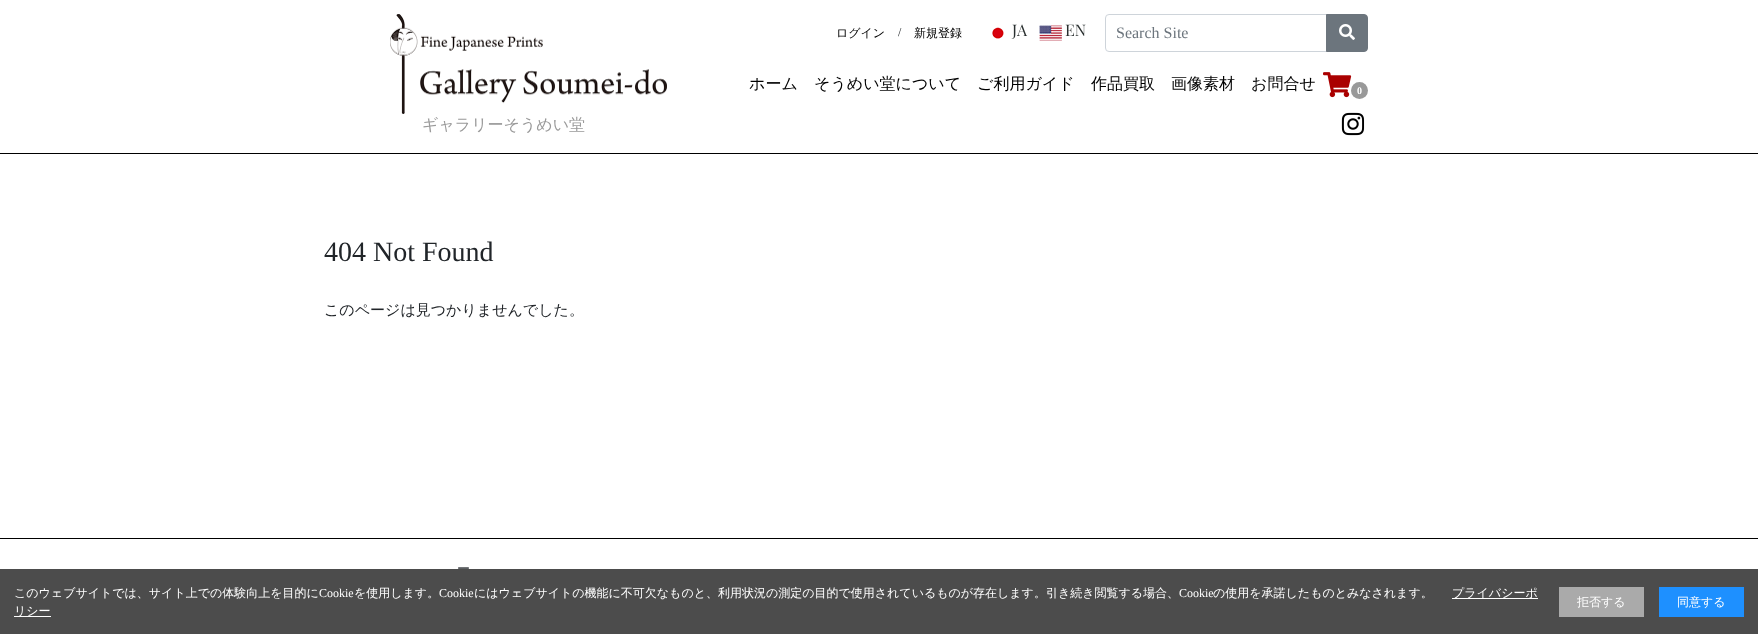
<!DOCTYPE html>
<meta charset="utf-8">
<style>body { margin: 0 } canvas { display: block }</style>
<canvas id="canvas" width="1758" height="634"></canvas>
<img id="img1" src="images/1.png" hidden>
<img id="img2" src="images/2.png" hidden>
<img id="img3" src="images/3.png" hidden>
<img id="img4" src="images/4.png" hidden>
<img id="img5" src="images/5.png" hidden>
<img id="img6" src="images/6.png" hidden>
<script>
window.onload = function () {
    const canvas = document.getElementById('canvas');
    const context = canvas.getContext('2d');
    context.miterLimit = 4;
    context.fontKerning = 'normal';

    context.fillStyle = 'rgb(255, 255, 255)';
    context.fillRect(0, 0, 1758, 634);
    context.drawImage(document.getElementById('img1'), 992, 27, 12, 12);
    context.drawImage(document.getElementById('img2'), 1039, 25, 23, 16);
    context.beginPath();
    context.roundRect(1105.5, 14.5, 221, 37, [3.5, 0, 0, 3.5]);
    context.strokeStyle = 'rgb(206, 212, 218)';
    context.stroke();
    context.fillStyle = 'rgb(108, 117, 125)';
    context.beginPath();
    context.roundRect(1326.5, 14.5, 41, 37, [0, 3.5, 3.5, 0]);
    context.fill();
    context.strokeStyle = 'rgb(108, 117, 125)';
    context.stroke();
    context.drawImage(document.getElementById('img3'), 1339, 24, 16, 16);
    context.drawImage(document.getElementById('img4'), 1323, 72, 29, 26);
    context.fillStyle = 'rgb(153, 153, 153)';
    context.beginPath();
    context.arc(1359.5, 90.5, 8.5, 0, 2 * Math.PI);
    context.fill();
    context.drawImage(document.getElementById('img5'), 1341, 112, 24, 24);
    context.drawImage(document.getElementById('img6'), 390, 14, 277, 100);
    context.fillStyle = 'rgb(0, 0, 0)';
    context.fillRect(0, 153, 1758, 1);
    context.fillRect(0, 538, 1758, 1);
    context.fillStyle = 'rgba(0, 0, 0, 0.7)';
    context.fillRect(0, 569, 1758, 65);
    context.fillStyle = 'rgb(255, 255, 255)';
    context.fillRect(1452, 598, 86, 1);
    context.fillRect(14, 616, 37, 1);
    context.fillStyle = 'rgb(170, 170, 170)';
    context.fillRect(1559, 587, 85, 30);
    context.fillStyle = 'rgb(30, 144, 255)';
    context.fillRect(1659, 587, 85, 30);
    context.font = '500 12px WenQuanYi Zen Hei';
    context.fillStyle = 'rgb(0, 0, 0)';
    context.fillText('ログイン', 836, 37);
    context.font = '12px Liberation Serif';
    context.fillStyle = 'rgb(33, 37, 41)';
    context.fillText('/', 898, 36);
    context.font = '500 12px WenQuanYi Zen Hei';
    context.fillStyle = 'rgb(0, 0, 0)';
    context.fillText('新規登録', 914, 37);
    context.font = '16px Playfair Display';
    context.fillStyle = 'rgb(41, 47, 47)';
    context.fillText('JA', 1012, 36);
    context.fillText('EN', 1065, 36);
    context.font = '16px Liberation Serif';
    context.fillStyle = 'rgb(108, 117, 125)';
    context.fillText('Search Site', 1116, 38);
    context.font = '500 16px WenQuanYi Zen Hei';
    context.fillStyle = 'rgb(0, 0, 0)';
    context.fillText('ホーム', 749, 89);
    context.fillText('そうめい堂について', 814, 89);
    context.fillText('ご利用ガイド', 977, 89);
    context.fillText('作品買取', 1091, 89);
    context.fillText('画像素材', 1171, 89);
    context.fillText('お問合せ', 1251, 89);
    context.font = 'bold 10px Liberation Serif';
    context.fillStyle = 'rgb(255, 255, 255)';
    context.fillText('0', 1357, 94);
    context.font = '500 16px WenQuanYi Zen Hei';
    context.fillStyle = 'rgb(153, 153, 153)';
    context.fillText('ギャラリーそうめい堂', 422, 130);
    context.font = '28px Liberation Serif';
    context.fillStyle = 'rgb(33, 37, 41)';
    context.fillText('404 Not Found', 324, 261);
    context.font = '500 15px WenQuanYi Zen Hei';
    context.fillText('このページは見つかりませんでした。', 324, 315);
    context.font = '500 13px WenQuanYi Zen Hei';
    context.fillText('ー', 457, 573);
    context.font = '500 12px WenQuanYi Zen Hei';
    context.fillStyle = 'rgb(255, 255, 255)';
    context.fillText('このウェブサイトでは、サイト上での体験向上を目的に', 14, 597);
    context.font = '12px Liberation Serif';
    context.fillText('Cookie', 319, 597);
    context.font = '500 12px WenQuanYi Zen Hei';
    context.fillText('を使用します。', 354, 597);
    context.font = '12px Liberation Serif';
    context.fillText('Cookie', 439, 597);
    context.font = '500 12px WenQuanYi Zen Hei';
    context.fillText('にはウェブサイトの機能に不可欠なものと、利用状況の測定の目的で使用されているものが存在します。引き続き閲覧する場合、', 474, 597);
    context.font = '12px Liberation Serif';
    context.fillText('Cookie', 1179, 597);
    context.font = '500 12px WenQuanYi Zen Hei';
    context.fillText('の使用を承諾したものとみなされます。', 1213, 597);
    context.fillText('プライバシーポ', 1452, 597);
    context.fillText('リシー', 14, 615);
    context.fillText('拒否する', 1577, 606);
    context.fillText('同意する', 1677, 606);
};
</script>
